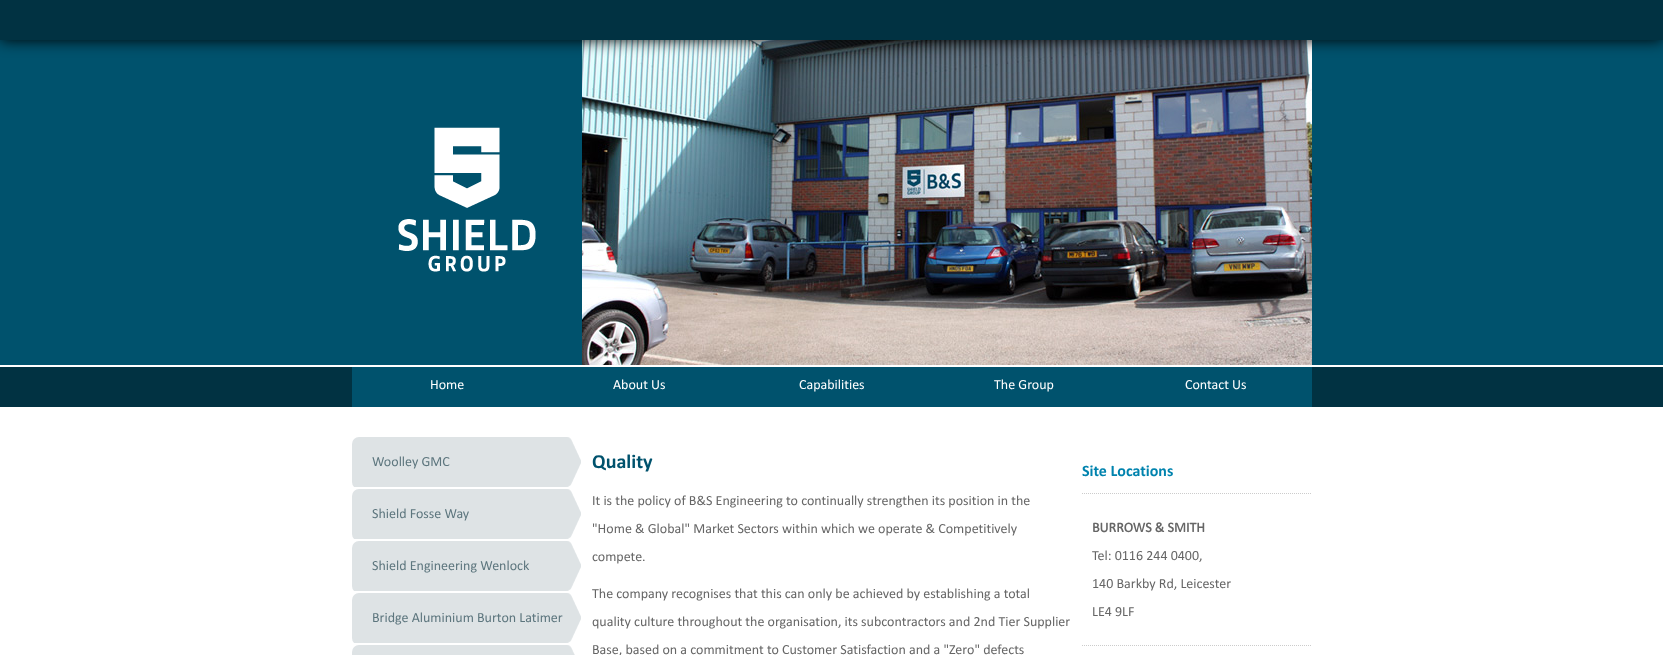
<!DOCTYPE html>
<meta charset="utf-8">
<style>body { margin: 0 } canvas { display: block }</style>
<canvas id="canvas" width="1663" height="655"></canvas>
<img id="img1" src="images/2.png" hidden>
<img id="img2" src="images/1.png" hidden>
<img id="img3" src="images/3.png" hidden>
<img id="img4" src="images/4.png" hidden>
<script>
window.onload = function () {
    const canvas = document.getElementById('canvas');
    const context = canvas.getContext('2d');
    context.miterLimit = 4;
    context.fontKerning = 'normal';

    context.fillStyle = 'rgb(255, 255, 255)';
    context.fillRect(0, 0, 1663, 655);
    context.fillStyle = 'rgb(0, 82, 109)';
    context.fillRect(0, 40, 1663, 325);
    context.drawImage(document.getElementById('img1'), 582, 40, 730, 325);
    context.fillStyle = 'rgb(0, 0, 0)';
    context.filter = 'blur(7.5px)';
    context.beginPath();
    context.rect(0, 0, 1663, 40);
    context.fill();
    context.filter = 'none';
    context.fillStyle = 'rgb(1, 50, 66)';
    context.fillRect(0, 0, 1663, 40);
    context.drawImage(document.getElementById('img2'), 398, 127, 138, 145);
    context.fillRect(0, 367, 1663, 40);
    context.fillStyle = 'rgb(0, 82, 109)';
    context.fillRect(352, 367, 960, 40);
    context.drawImage(document.getElementById('img3'), 352, 437, 229, 50);
    context.drawImage(document.getElementById('img3'), 352, 489, 229, 50);
    context.drawImage(document.getElementById('img3'), 352, 541, 229, 50);
    context.drawImage(document.getElementById('img3'), 352, 593, 229, 50);
    context.drawImage(document.getElementById('img4'), 352, 645, 223, 10);
    context.beginPath();
    context.moveTo(1082, 493.5);
    context.lineTo(1312, 493.5);
    context.strokeStyle = 'rgb(204, 204, 204)';
    context.setLineDash([1, 1]);
    context.stroke();
    context.beginPath();
    context.moveTo(1082, 645.5);
    context.lineTo(1312, 645.5);
    context.stroke();
    context.font = '14px Calibri';
    context.fillStyle = 'rgb(255, 255, 255)';
    context.fillText('Home', 430, 389);
    context.fillText('About Us', 613, 389);
    context.fillText('Capabilities', 799, 389);
    context.fillText('The Group', 994, 389);
    context.fillText('Contact Us', 1185, 389);
    context.fillStyle = 'rgb(93, 118, 126)';
    context.fillText('Woolley GMC', 372, 466);
    context.fillText('Shield Fosse Way', 372, 518);
    context.fillText('Shield Engineering Wenlock', 372, 570);
    context.fillText('Bridge Aluminium Burton Latimer', 372, 622);
    context.font = 'bold 20px Calibri';
    context.fillStyle = 'rgb(0, 82, 109)';
    context.fillText('Quality', 592, 468);
    context.font = '14px Calibri';
    context.fillStyle = 'rgb(102, 102, 102)';
    context.fillText('It is the policy of B&S Engineering to continually strengthen its position in the', 592, 505);
    context.fillText('"Home & Global" Market Sectors within which we operate & Competitively', 592, 533);
    context.fillText('compete.', 592, 561);
    context.fillText('The company recognises that this can only be achieved by establishing a total', 592, 598);
    context.fillText('quality culture throughout the organisation, its subcontractors and 2nd Tier Supplier', 592, 626);
    context.fillText('Base, based on a commitment to Customer Satisfaction and a "Zero" defects', 592, 654);
    context.font = 'bold 16px Calibri';
    context.fillStyle = 'rgb(0, 131, 174)';
    context.fillText('Site Locations', 1082, 476);
    context.font = 'bold 14px "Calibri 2"';
    context.fillStyle = 'rgb(102, 102, 102)';
    context.fillText('BURROWS & SMITH', 1092, 532);
    context.font = '14px Calibri';
    context.fillText('Tel: 0116 244 0400,', 1092, 560);
    context.fillText('140 Barkby Rd, Leicester', 1092, 588);
    context.fillText('LE4 9LF', 1092, 616);
};
</script>
